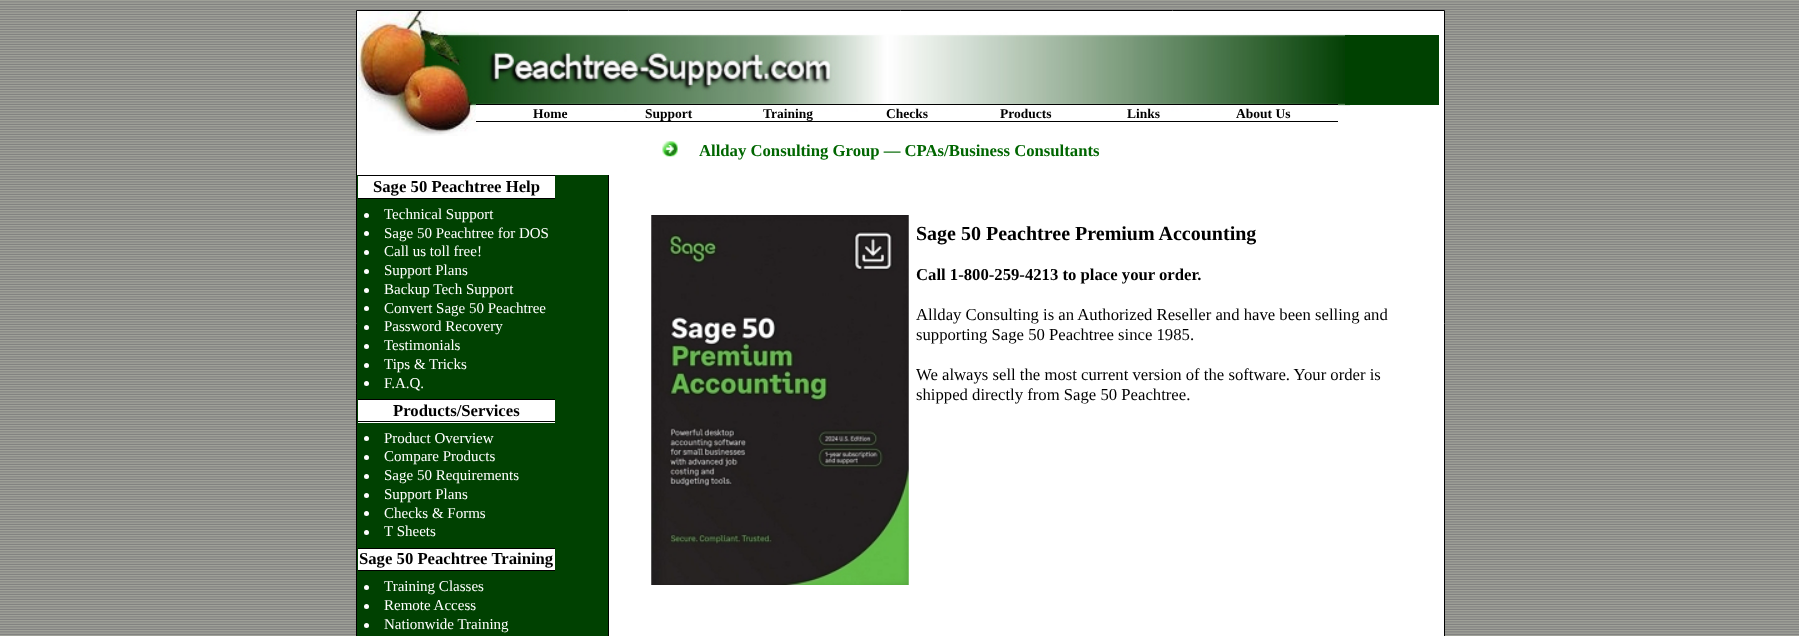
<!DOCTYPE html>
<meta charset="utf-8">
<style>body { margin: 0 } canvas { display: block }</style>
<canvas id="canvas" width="1799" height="636"></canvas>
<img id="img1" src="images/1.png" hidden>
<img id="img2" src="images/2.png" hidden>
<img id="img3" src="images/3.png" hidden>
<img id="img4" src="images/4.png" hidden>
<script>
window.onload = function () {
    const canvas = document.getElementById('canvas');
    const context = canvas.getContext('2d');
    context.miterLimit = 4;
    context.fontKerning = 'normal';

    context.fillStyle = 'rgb(255, 255, 255)';
    context.fillRect(0, 0, 1799, 636);
    context.drawImage(document.getElementById('img1'), 0, 0, 1799, 636);
    context.beginPath();
    context.rect(356.5, 10.5, 1088, 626);
    context.fill();
    context.strokeStyle = 'rgb(0, 0, 0)';
    context.stroke();
    context.drawImage(document.getElementById('img2'), 357, 11, 993, 125);
    context.fillStyle = 'rgb(0, 65, 1)';
    context.fillRect(1345, 35, 94, 70);
    context.fillStyle = 'rgb(255, 255, 255)';
    context.fillRect(476, 105, 119, 18);
    context.fillStyle = 'rgb(0, 0, 0)';
    context.fillRect(476, 104, 862, 1);
    context.fillRect(476, 121, 862, 1);
    context.fillStyle = 'rgb(255, 255, 255)';
    context.fillRect(595, 105, 743, 1);
    context.drawImage(document.getElementById('img3'), 662, 141, 16, 16);
    context.fillStyle = 'rgb(0, 65, 1)';
    context.fillRect(357, 175, 251, 461);
    context.fillStyle = 'rgb(0, 0, 0)';
    context.fillRect(608, 175, 1, 461);
    context.fillStyle = 'rgb(255, 255, 255)';
    context.fillRect(358, 176, 197, 22);
    context.fillStyle = 'rgb(0, 0, 0)';
    context.fillRect(358, 175, 197, 1);
    context.fillRect(358, 198, 197, 1);
    context.fillStyle = 'rgb(255, 255, 255)';
    context.beginPath();
    context.arc(366.5, 215.5, 2.5, 0, 2 * Math.PI);
    context.fill();
    context.beginPath();
    context.arc(366.5, 233.5, 2.5, 0, 2 * Math.PI);
    context.fill();
    context.beginPath();
    context.arc(366.5, 252.5, 2.5, 0, 2 * Math.PI);
    context.fill();
    context.beginPath();
    context.arc(366.5, 271.5, 2.5, 0, 2 * Math.PI);
    context.fill();
    context.beginPath();
    context.arc(366.5, 290.5, 2.5, 0, 2 * Math.PI);
    context.fill();
    context.beginPath();
    context.arc(366.5, 308.5, 2.5, 0, 2 * Math.PI);
    context.fill();
    context.beginPath();
    context.arc(366.5, 327.5, 2.5, 0, 2 * Math.PI);
    context.fill();
    context.beginPath();
    context.arc(366.5, 346.5, 2.5, 0, 2 * Math.PI);
    context.fill();
    context.beginPath();
    context.arc(366.5, 365.5, 2.5, 0, 2 * Math.PI);
    context.fill();
    context.beginPath();
    context.arc(366.5, 383.5, 2.5, 0, 2 * Math.PI);
    context.fill();
    context.fillRect(358, 400, 197, 23);
    context.fillStyle = 'rgb(0, 0, 0)';
    context.fillRect(358, 399, 197, 1);
    context.fillRect(358, 421, 197, 1);
    context.fillStyle = 'rgb(255, 255, 255)';
    context.beginPath();
    context.arc(366.5, 438.5, 2.5, 0, 2 * Math.PI);
    context.fill();
    context.beginPath();
    context.arc(366.5, 457.5, 2.5, 0, 2 * Math.PI);
    context.fill();
    context.beginPath();
    context.arc(366.5, 476.5, 2.5, 0, 2 * Math.PI);
    context.fill();
    context.beginPath();
    context.arc(366.5, 495.5, 2.5, 0, 2 * Math.PI);
    context.fill();
    context.beginPath();
    context.arc(366.5, 513.5, 2.5, 0, 2 * Math.PI);
    context.fill();
    context.beginPath();
    context.arc(366.5, 532.5, 2.5, 0, 2 * Math.PI);
    context.fill();
    context.fillRect(358, 549, 197, 21);
    context.fillStyle = 'rgb(0, 0, 0)';
    context.fillRect(358, 548, 197, 1);
    context.fillRect(358, 570, 197, 1);
    context.fillStyle = 'rgb(255, 255, 255)';
    context.beginPath();
    context.arc(366.5, 587.5, 2.5, 0, 2 * Math.PI);
    context.fill();
    context.beginPath();
    context.arc(366.5, 606.5, 2.5, 0, 2 * Math.PI);
    context.fill();
    context.beginPath();
    context.arc(366.5, 625.5, 2.5, 0, 2 * Math.PI);
    context.fill();
    context.drawImage(document.getElementById('img4'), 651, 215, 258, 370);
    context.font = 'bold 13.5px Liberation Serif';
    context.fillStyle = 'rgb(0, 0, 0)';
    context.fillText('Home', 533, 118);
    context.fillText('Support', 645, 118);
    context.fillText('Training', 763, 118);
    context.fillText('Checks', 886, 118);
    context.fillText('Products', 1000, 118);
    context.fillText('Links', 1127, 118);
    context.fillText('About Us', 1236, 118);
    context.font = 'bold 16.7px Liberation Serif';
    context.fillStyle = 'rgb(0, 102, 0)';
    context.fillText('Allday Consulting Group — CPAs/Business Consultants', 699, 156);
    context.fillStyle = 'rgb(0, 0, 0)';
    context.fillText('Sage 50 Peachtree Help', 373, 192);
    context.font = '15px Liberation Serif';
    context.fillStyle = 'rgb(255, 255, 255)';
    context.fillText('Technical Support', 384, 219);
    context.fillText('Sage 50 Peachtree for DOS', 384, 238);
    context.fillText('Call us toll free!', 384, 256);
    context.fillText('Support Plans', 384, 275);
    context.fillText('Backup Tech Support', 384, 294);
    context.fillText('Convert Sage 50 Peachtree', 384, 313);
    context.fillText('Password Recovery', 384, 331);
    context.fillText('Testimonials', 384, 350);
    context.fillText('Tips & Tricks', 384, 369);
    context.fillText('F.A.Q.', 384, 388);
    context.font = 'bold 16.7px Liberation Serif';
    context.fillStyle = 'rgb(0, 0, 0)';
    context.fillText('Products/Services', 393, 416);
    context.font = '15px Liberation Serif';
    context.fillStyle = 'rgb(255, 255, 255)';
    context.fillText('Product Overview', 384, 443);
    context.fillText('Compare Products', 384, 461);
    context.fillText('Sage 50 Requirements', 384, 480);
    context.fillText('Support Plans', 384, 499);
    context.fillText('Checks & Forms', 384, 518);
    context.fillText('T Sheets', 384, 536);
    context.font = 'bold 16.7px Liberation Serif';
    context.fillStyle = 'rgb(0, 0, 0)';
    context.fillText('Sage 50 Peachtree Training', 359, 564);
    context.font = '15px Liberation Serif';
    context.fillStyle = 'rgb(255, 255, 255)';
    context.fillText('Training Classes', 384, 591);
    context.fillText('Remote Access', 384, 610);
    context.fillText('Nationwide Training', 384, 629);
    context.font = 'bold 20px Liberation Serif';
    context.fillStyle = 'rgb(0, 0, 0)';
    context.fillText('Sage 50 Peachtree Premium Accounting', 916, 240);
    context.font = 'bold 16.7px Liberation Serif';
    context.fillText('Call 1-800-259-4213 to place your order.', 916, 280);
    context.font = '16.7px Liberation Serif';
    context.fillText('Allday Consulting is an Authorized Reseller and have been selling and', 916, 320);
    context.fillText('supporting Sage 50 Peachtree since 1985.', 916, 340);
    context.fillText('We always sell the most current version of the software. Your order is', 916, 380);
    context.fillText('shipped directly from Sage 50 Peachtree.', 916, 400);
};
</script>
